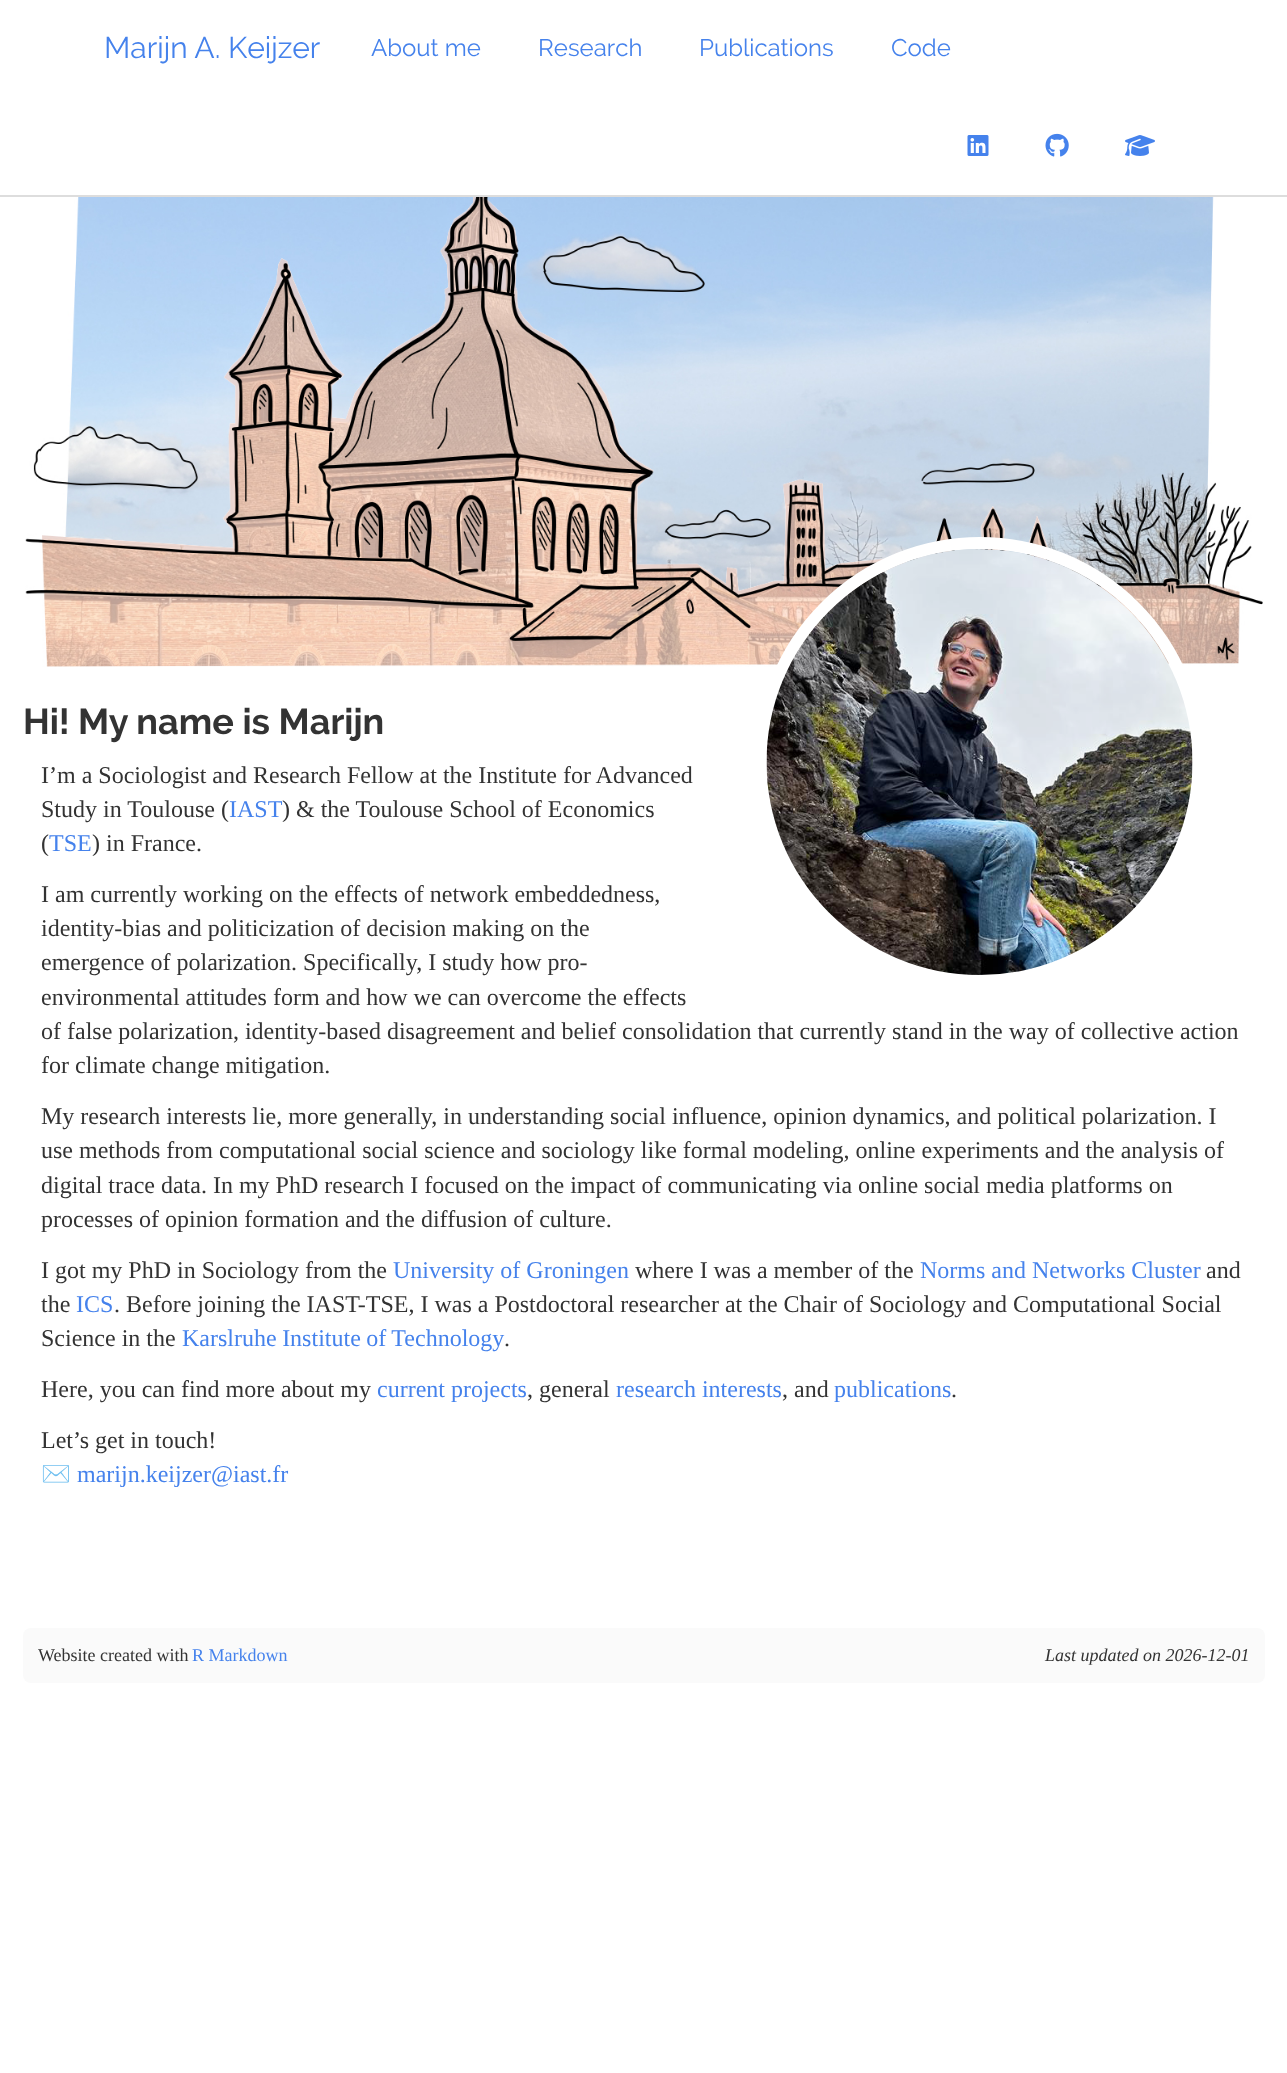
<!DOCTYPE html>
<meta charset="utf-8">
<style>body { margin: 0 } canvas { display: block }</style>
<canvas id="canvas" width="1287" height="2073"></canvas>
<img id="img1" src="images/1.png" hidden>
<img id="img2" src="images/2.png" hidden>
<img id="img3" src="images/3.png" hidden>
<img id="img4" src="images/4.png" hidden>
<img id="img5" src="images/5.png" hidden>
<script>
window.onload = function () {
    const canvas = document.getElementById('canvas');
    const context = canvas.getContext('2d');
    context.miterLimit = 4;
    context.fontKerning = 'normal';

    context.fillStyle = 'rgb(255, 255, 255)';
    context.fillRect(0, 0, 1287, 2073);
    context.fillStyle = 'rgb(221, 221, 221)';
    context.fillRect(0, 195, 1287, 2);
    context.drawImage(document.getElementById('img1'), 967, 135, 22, 21);
    context.drawImage(document.getElementById('img2'), 1045, 133, 24, 24);
    context.drawImage(document.getElementById('img3'), 1125, 135, 30, 21);
    context.drawImage(document.getElementById('img4'), 25, 197, 1238, 470);
    context.beginPath();
    context.arc(980, 762, 219, 0, 2 * Math.PI);
    context.strokeStyle = 'rgb(255, 255, 255)';
    context.lineWidth = 12;
    context.stroke();
    context.drawImage(document.getElementById('img5'), 766, 549, 427, 426);
    context.fillStyle = 'rgb(250, 250, 250)';
    context.beginPath();
    context.roundRect(23, 1628, 1242, 55, 8);
    context.fill();
    context.font = '30px Raleway';
    context.fillStyle = 'rgb(69, 130, 236)';
    context.fillText('Marijn A. Keijzer', 104, 58);
    context.font = '24px Raleway';
    context.fillText('About me', 371, 56);
    context.fillText('Research', 538, 56);
    context.fillText('Publications', 699, 56);
    context.fillText('Code', 891, 56);
    context.font = 'bold 36px Raleway';
    context.fillStyle = 'rgb(51, 51, 51)';
    context.fillText('Hi! My name is Marijn', 23, 734);
    context.font = '24px Liberation Serif';
    context.fillText('I’m a Sociologist and Research Fellow at the Institute for Advanced', 41, 783);
    context.fillText('Study in Toulouse (', 41, 817);
    context.fillStyle = 'rgb(69, 130, 236)';
    context.fillText('IAST', 229, 817);
    context.fillStyle = 'rgb(51, 51, 51)';
    context.fillText(') & the Toulouse School of Economics', 282, 817);
    context.fillText('(', 41, 851);
    context.fillStyle = 'rgb(69, 130, 236)';
    context.fillText('TSE', 49, 851);
    context.fillStyle = 'rgb(51, 51, 51)';
    context.fillText(') in France.', 92, 851);
    context.fillText('I am currently working on the effects of network embeddedness,', 41, 902);
    context.fillText('identity-bias and politicization of decision making on the', 41, 936);
    context.fillText('emergence of polarization. Specifically, I study how pro-', 41, 970);
    context.fillText('environmental attitudes form and how we can overcome the effects', 41, 1005);
    context.fillText('of false polarization, identity-based disagreement and belief consolidation that currently stand in the way of collective action', 41, 1039);
    context.fillText('for climate change mitigation.', 41, 1073);
    context.fillText('My research interests lie, more generally, in understanding social influence, opinion dynamics, and political polarization. I', 41, 1124);
    context.fillText('use methods from computational social science and sociology like formal modeling, online experiments and the analysis of', 41, 1158);
    context.fillText('digital trace data. In my PhD research I focused on the impact of communicating via online social media platforms on', 41, 1193);
    context.fillText('processes of opinion formation and the diffusion of culture.', 41, 1227);
    context.fillText('I got my PhD in Sociology from the', 41, 1278);
    context.fillStyle = 'rgb(69, 130, 236)';
    context.fillText('University of Groningen', 393, 1278);
    context.fillStyle = 'rgb(51, 51, 51)';
    context.fillText('where I was a member of the', 635, 1278);
    context.fillStyle = 'rgb(69, 130, 236)';
    context.fillText('Norms and Networks Cluster', 920, 1278);
    context.fillStyle = 'rgb(51, 51, 51)';
    context.fillText('and', 1206, 1278);
    context.fillText('the', 41, 1312);
    context.fillStyle = 'rgb(69, 130, 236)';
    context.fillText('ICS', 76, 1312);
    context.fillStyle = 'rgb(51, 51, 51)';
    context.fillText('. Before joining the IAST-TSE, I was a Postdoctoral researcher at the Chair of Sociology and Computational Social', 114, 1312);
    context.fillText('Science in the', 41, 1346);
    context.wordSpacing = '-0.5px';
    context.fillStyle = 'rgb(69, 130, 236)';
    context.fillText('Karslruhe Institute of Technology', 182, 1346);
    context.wordSpacing = '0px';
    context.fillStyle = 'rgb(51, 51, 51)';
    context.fillText('.', 504, 1346);
    context.fillText('Here, you can find more about my', 41, 1397);
    context.fillStyle = 'rgb(69, 130, 236)';
    context.fillText('current projects', 377, 1397);
    context.fillStyle = 'rgb(51, 51, 51)';
    context.fillText(', general', 527, 1397);
    context.fillStyle = 'rgb(69, 130, 236)';
    context.fillText('research interests', 616, 1397);
    context.fillStyle = 'rgb(51, 51, 51)';
    context.fillText(', and', 782, 1397);
    context.fillStyle = 'rgb(69, 130, 236)';
    context.fillText('publications', 834, 1397);
    context.fillStyle = 'rgb(51, 51, 51)';
    context.fillText('.', 951, 1397);
    context.fillText('Let’s get in touch!', 41, 1448);
    context.font = '24px Noto Color Emoji';
    context.fillText('✉️', 41, 1482);
    context.font = '24px Liberation Serif';
    context.fillStyle = 'rgb(69, 130, 236)';
    context.fillText('marijn.keijzer@iast.fr', 77, 1482);
    context.font = '18px Liberation Serif';
    context.fillStyle = 'rgb(51, 51, 51)';
    context.fillText('Website created with', 38, 1661);
    context.fillStyle = 'rgb(69, 130, 236)';
    context.fillText('R Markdown', 192, 1661);
    context.font = 'italic 18px Liberation Serif';
    context.fillStyle = 'rgb(51, 51, 51)';
    context.fillText('Last updated on 2026-12-01', 1045, 1661);
};
</script>
